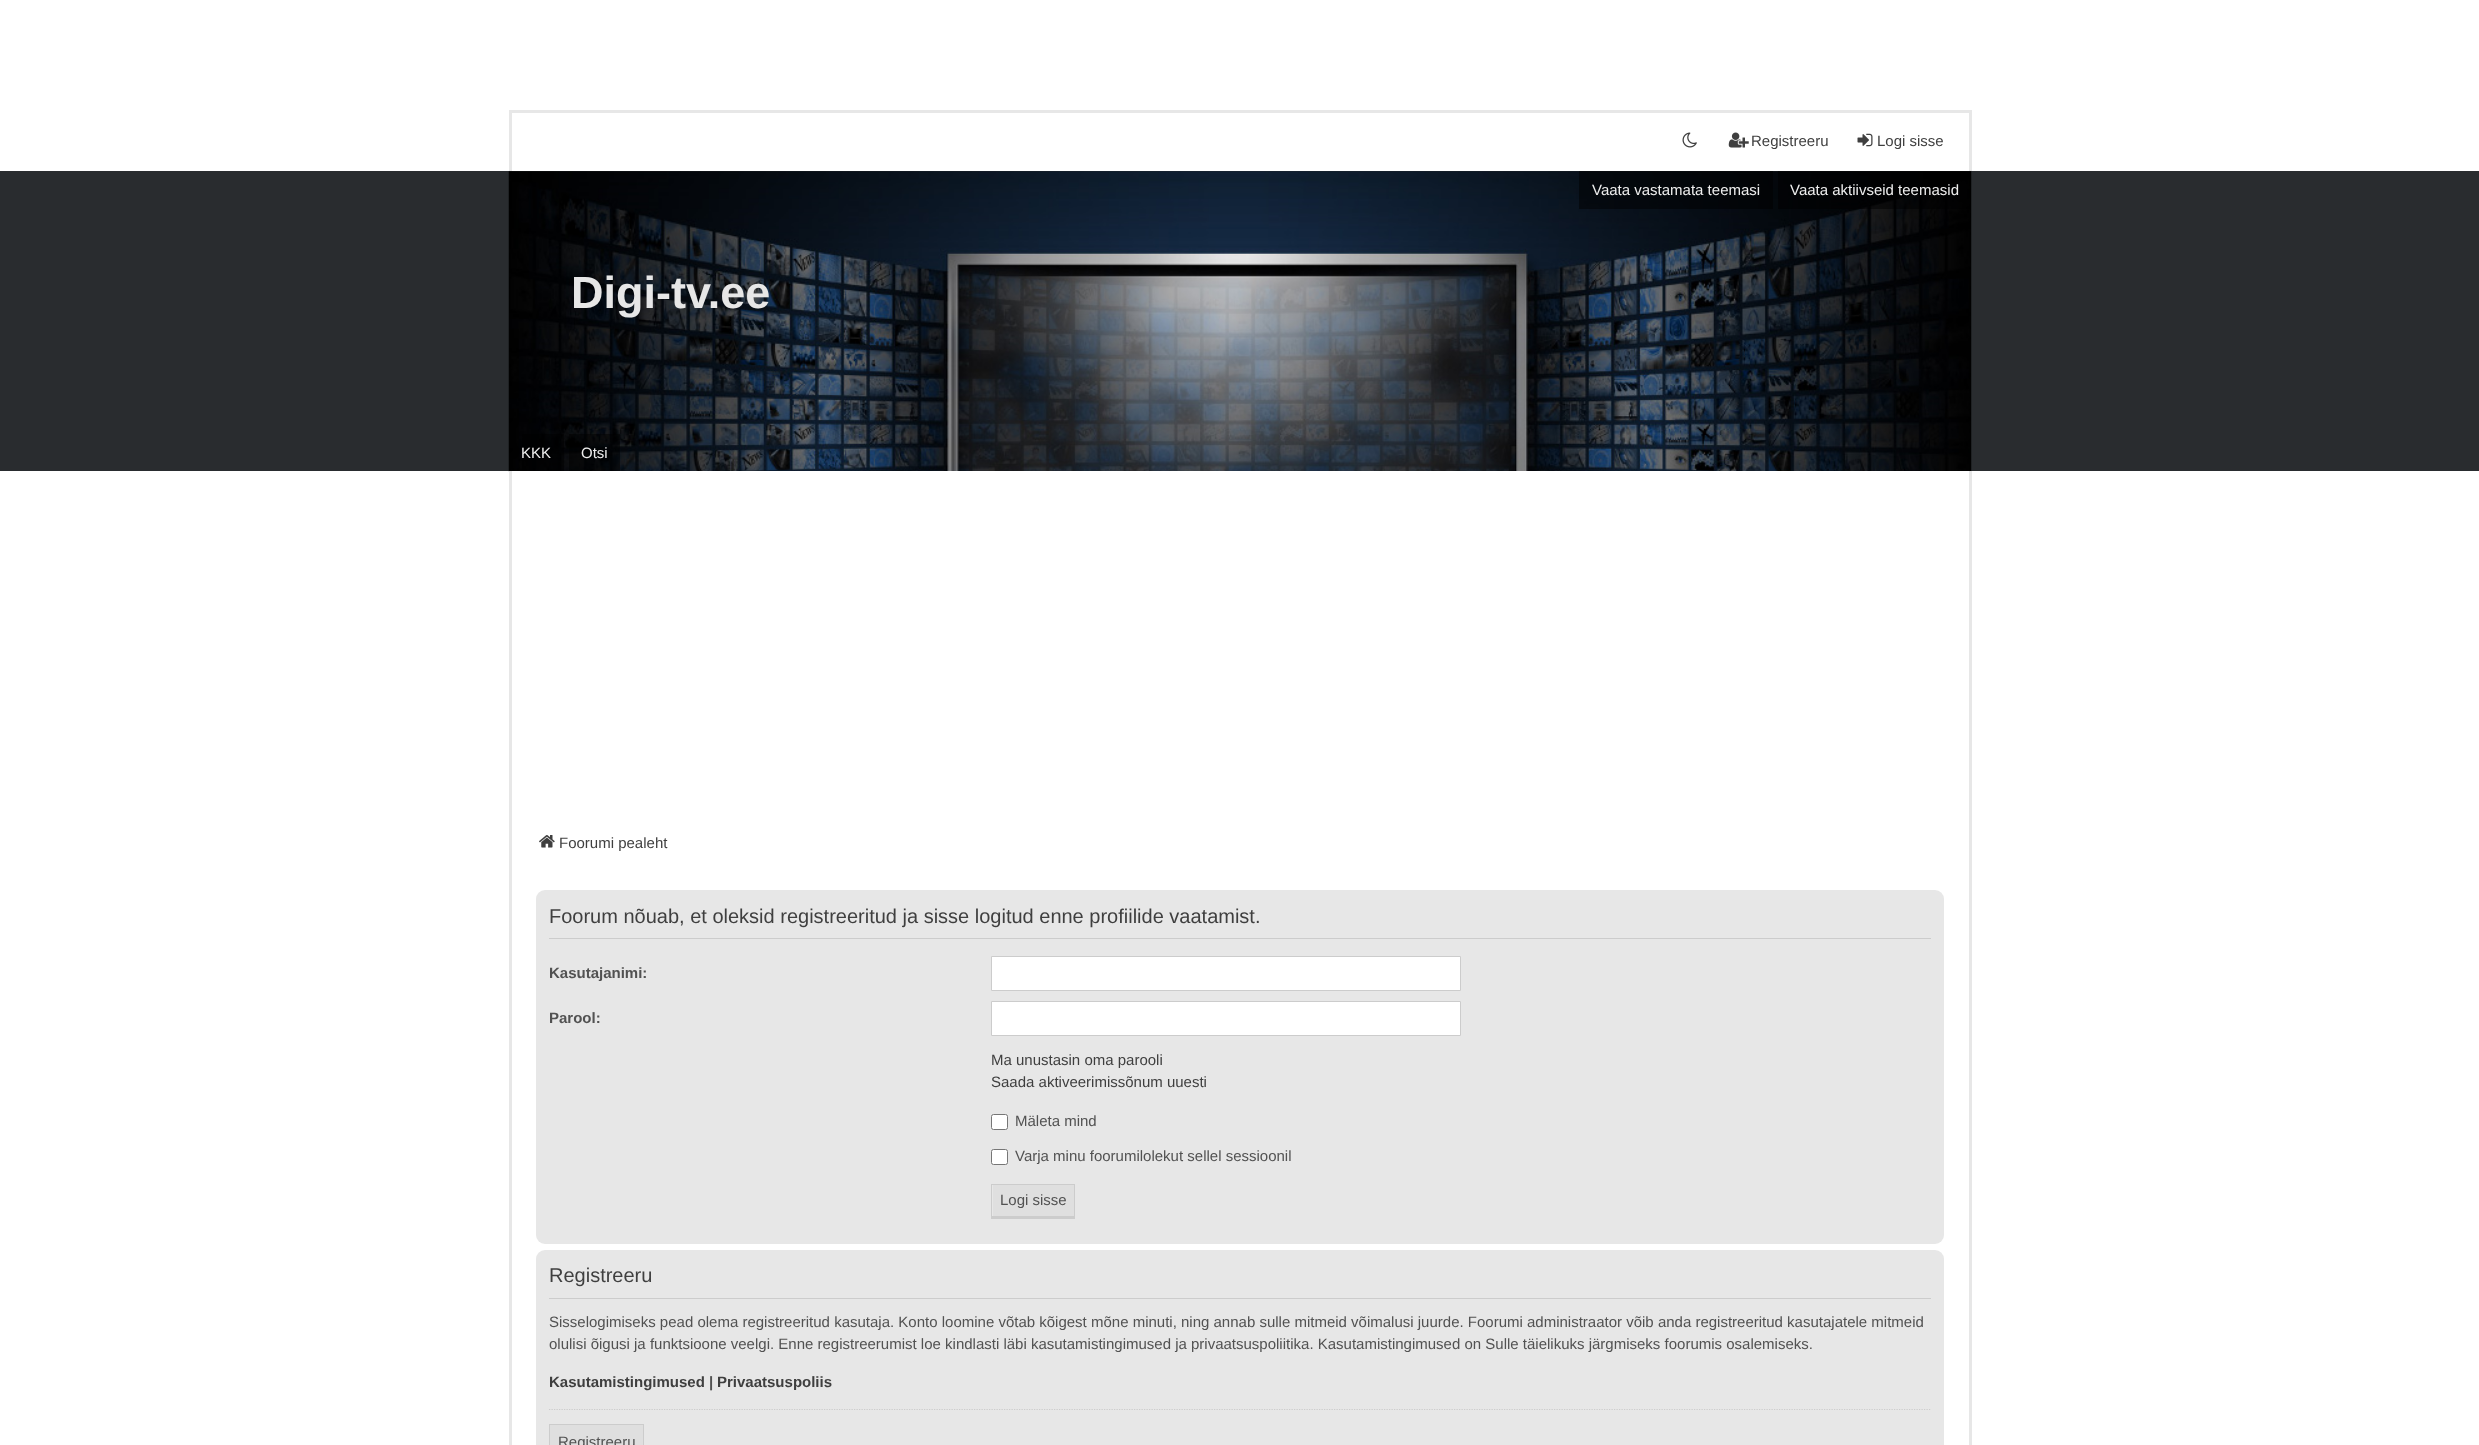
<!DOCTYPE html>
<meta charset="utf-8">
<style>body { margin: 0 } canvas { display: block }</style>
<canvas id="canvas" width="2479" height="1445"></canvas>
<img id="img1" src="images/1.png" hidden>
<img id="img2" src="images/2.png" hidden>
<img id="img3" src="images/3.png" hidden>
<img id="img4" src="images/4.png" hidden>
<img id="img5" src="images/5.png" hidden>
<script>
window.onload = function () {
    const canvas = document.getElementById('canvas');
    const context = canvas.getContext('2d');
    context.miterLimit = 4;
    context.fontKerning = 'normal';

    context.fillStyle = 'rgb(255, 255, 255)';
    context.fillRect(0, 0, 2479, 1445);
    context.fillStyle = 'rgb(231, 231, 231)';
    context.fillRect(509, 110, 1462, 3);
    context.fillRect(1969, 110, 3, 61);
    context.fillRect(509, 110, 3, 61);
    context.drawImage(document.getElementById('img1'), 1682, 132, 15, 16);
    context.drawImage(document.getElementById('img2'), 1728, 132, 21, 16);
    context.drawImage(document.getElementById('img3'), 1857, 133, 16, 14);
    context.fillStyle = 'rgb(41, 44, 47)';
    context.fillRect(0, 171, 2479, 300);
    context.drawImage(document.getElementById('img4'), 508, 171, 1464, 301);
    context.fillStyle = 'rgba(0, 0, 0, 0.5)';
    context.fillRect(1579, 171, 194, 38);
    context.fillRect(1778, 171, 193, 38);
    context.fillRect(522, 434, 42, 37);
    context.fillRect(569, 434, 51, 37);
    context.fillStyle = 'rgb(255, 255, 255)';
    context.fillRect(512, 471, 1457, 1);
    context.fillStyle = 'rgb(231, 231, 231)';
    context.fillRect(1969, 471, 3, 974);
    context.fillRect(509, 471, 3, 974);
    context.drawImage(document.getElementById('img5'), 539, 835, 16, 13);
    context.beginPath();
    context.roundRect(536, 890, 1408, 354, 9);
    context.fill();
    context.fillStyle = 'rgb(204, 204, 204)';
    context.fillRect(549, 938, 1382, 1);
    context.fillStyle = 'rgb(255, 255, 255)';
    context.beginPath();
    context.rect(991.5, 956.5, 469, 34);
    context.fill();
    context.strokeStyle = 'rgb(204, 204, 204)';
    context.stroke();
    context.beginPath();
    context.rect(991.5, 1001.5, 469, 34);
    context.fill();
    context.stroke();
    context.beginPath();
    context.roundRect(991.5, 1114.5, 16, 15, 2);
    context.fill();
    context.strokeStyle = 'rgb(118, 118, 118)';
    context.stroke();
    context.beginPath();
    context.roundRect(991.5, 1149.5, 16, 15, 2);
    context.fill();
    context.stroke();
    context.fillStyle = 'rgb(223, 223, 223)';
    context.fillRect(993, 1185, 81, 31);
    context.fillStyle = 'rgb(204, 204, 204)';
    context.fillRect(991, 1184, 84, 1);
    context.fillRect(1074, 1184, 1, 35);
    context.fillRect(991, 1216, 84, 3);
    context.fillRect(991, 1184, 1, 35);
    context.fillStyle = 'rgb(231, 231, 231)';
    context.beginPath();
    context.roundRect(536, 1250, 1408, 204, 9);
    context.fill();
    context.fillStyle = 'rgb(204, 204, 204)';
    context.fillRect(549, 1298, 1382, 1);
    context.beginPath();
    context.moveTo(549, 1409.5);
    context.lineTo(1931, 1409.5);
    context.strokeStyle = 'rgb(204, 204, 204)';
    context.lineWidth = 1.2;
    context.setLineDash([1.25, 1.25]);
    context.stroke();
    context.fillStyle = 'rgb(223, 223, 223)';
    context.fillRect(550, 1425, 93, 20);
    context.fillStyle = 'rgb(204, 204, 204)';
    context.fillRect(549, 1424, 95, 1);
    context.fillRect(643, 1424, 1, 21);
    context.fillRect(549, 1424, 1, 21);
    context.font = '15px Liberation Sans';
    context.fillStyle = 'rgb(63, 63, 63)';
    context.fillText('Registreeru', 1751, 146);
    context.fillText('Logi sisse', 1877, 146);
    context.fillStyle = 'rgb(238, 238, 238)';
    context.fillText('Vaata vastamata teemasi', 1592, 195);
    context.fillText('Vaata aktiivseid teemasid', 1790, 195);
    context.fillText('KKK', 521, 458);
    context.fillText('Otsi', 581, 458);
    context.font = 'bold 45px Liberation Sans';
    context.fillStyle = 'rgb(231, 231, 231)';
    context.fillText('Digi-tv.ee', 571, 308);
    context.font = '15px Liberation Sans';
    context.fillStyle = 'rgb(63, 63, 63)';
    context.fillText('Foorumi pealeht', 559, 848);
    context.font = '20px Liberation Sans';
    context.fillText('Foorum nõuab, et oleksid registreeritud ja sisse logitud enne profiilide vaatamist.', 549, 923);
    context.font = 'bold 15px Liberation Sans';
    context.fillStyle = 'rgb(82, 82, 82)';
    context.fillText('Kasutajanimi:', 549, 978);
    context.fillText('Parool:', 549, 1023);
    context.font = '15px Liberation Sans';
    context.fillStyle = 'rgb(63, 63, 63)';
    context.fillText('Ma unustasin oma parooli', 991, 1065);
    context.fillText('Saada aktiveerimissõnum uuesti', 991, 1087);
    context.fillStyle = 'rgb(82, 82, 82)';
    context.fillText('Mäleta mind', 1015, 1126);
    context.fillText('Varja minu foorumilolekut sellel sessioonil', 1015, 1161);
    context.fillText('Logi sisse', 1000, 1205);
    context.font = '20px Liberation Sans';
    context.fillStyle = 'rgb(63, 63, 63)';
    context.fillText('Registreeru', 549, 1282);
    context.font = '15px Liberation Sans';
    context.fillStyle = 'rgb(82, 82, 82)';
    context.fillText('Sisselogimiseks pead olema registreeritud kasutaja. Konto loomine võtab kõigest mõne minuti, ning annab sulle mitmeid võimalusi juurde. Foorumi administraator võib anda registreeritud kasutajatele mitmeid', 549, 1327);
    context.fillText('olulisi õigusi ja funktsioone veelgi. Enne registreerumist loe kindlasti läbi kasutamistingimused ja privaatsuspoliitika. Kasutamistingimused on Sulle täielikuks järgmiseks foorumis osalemiseks.', 549, 1349);
    context.font = 'bold 15px Liberation Sans';
    context.fillStyle = 'rgb(63, 63, 63)';
    context.fillText('Kasutamistingimused', 549, 1387);
    context.fillStyle = 'rgb(82, 82, 82)';
    context.fillText('|', 709, 1387);
    context.fillStyle = 'rgb(63, 63, 63)';
    context.fillText('Privaatsuspoliis', 717, 1387);
    context.font = '15px Liberation Sans';
    context.fillStyle = 'rgb(82, 82, 82)';
    context.fillText('Registreeru', 558, 1447);
};
</script>
